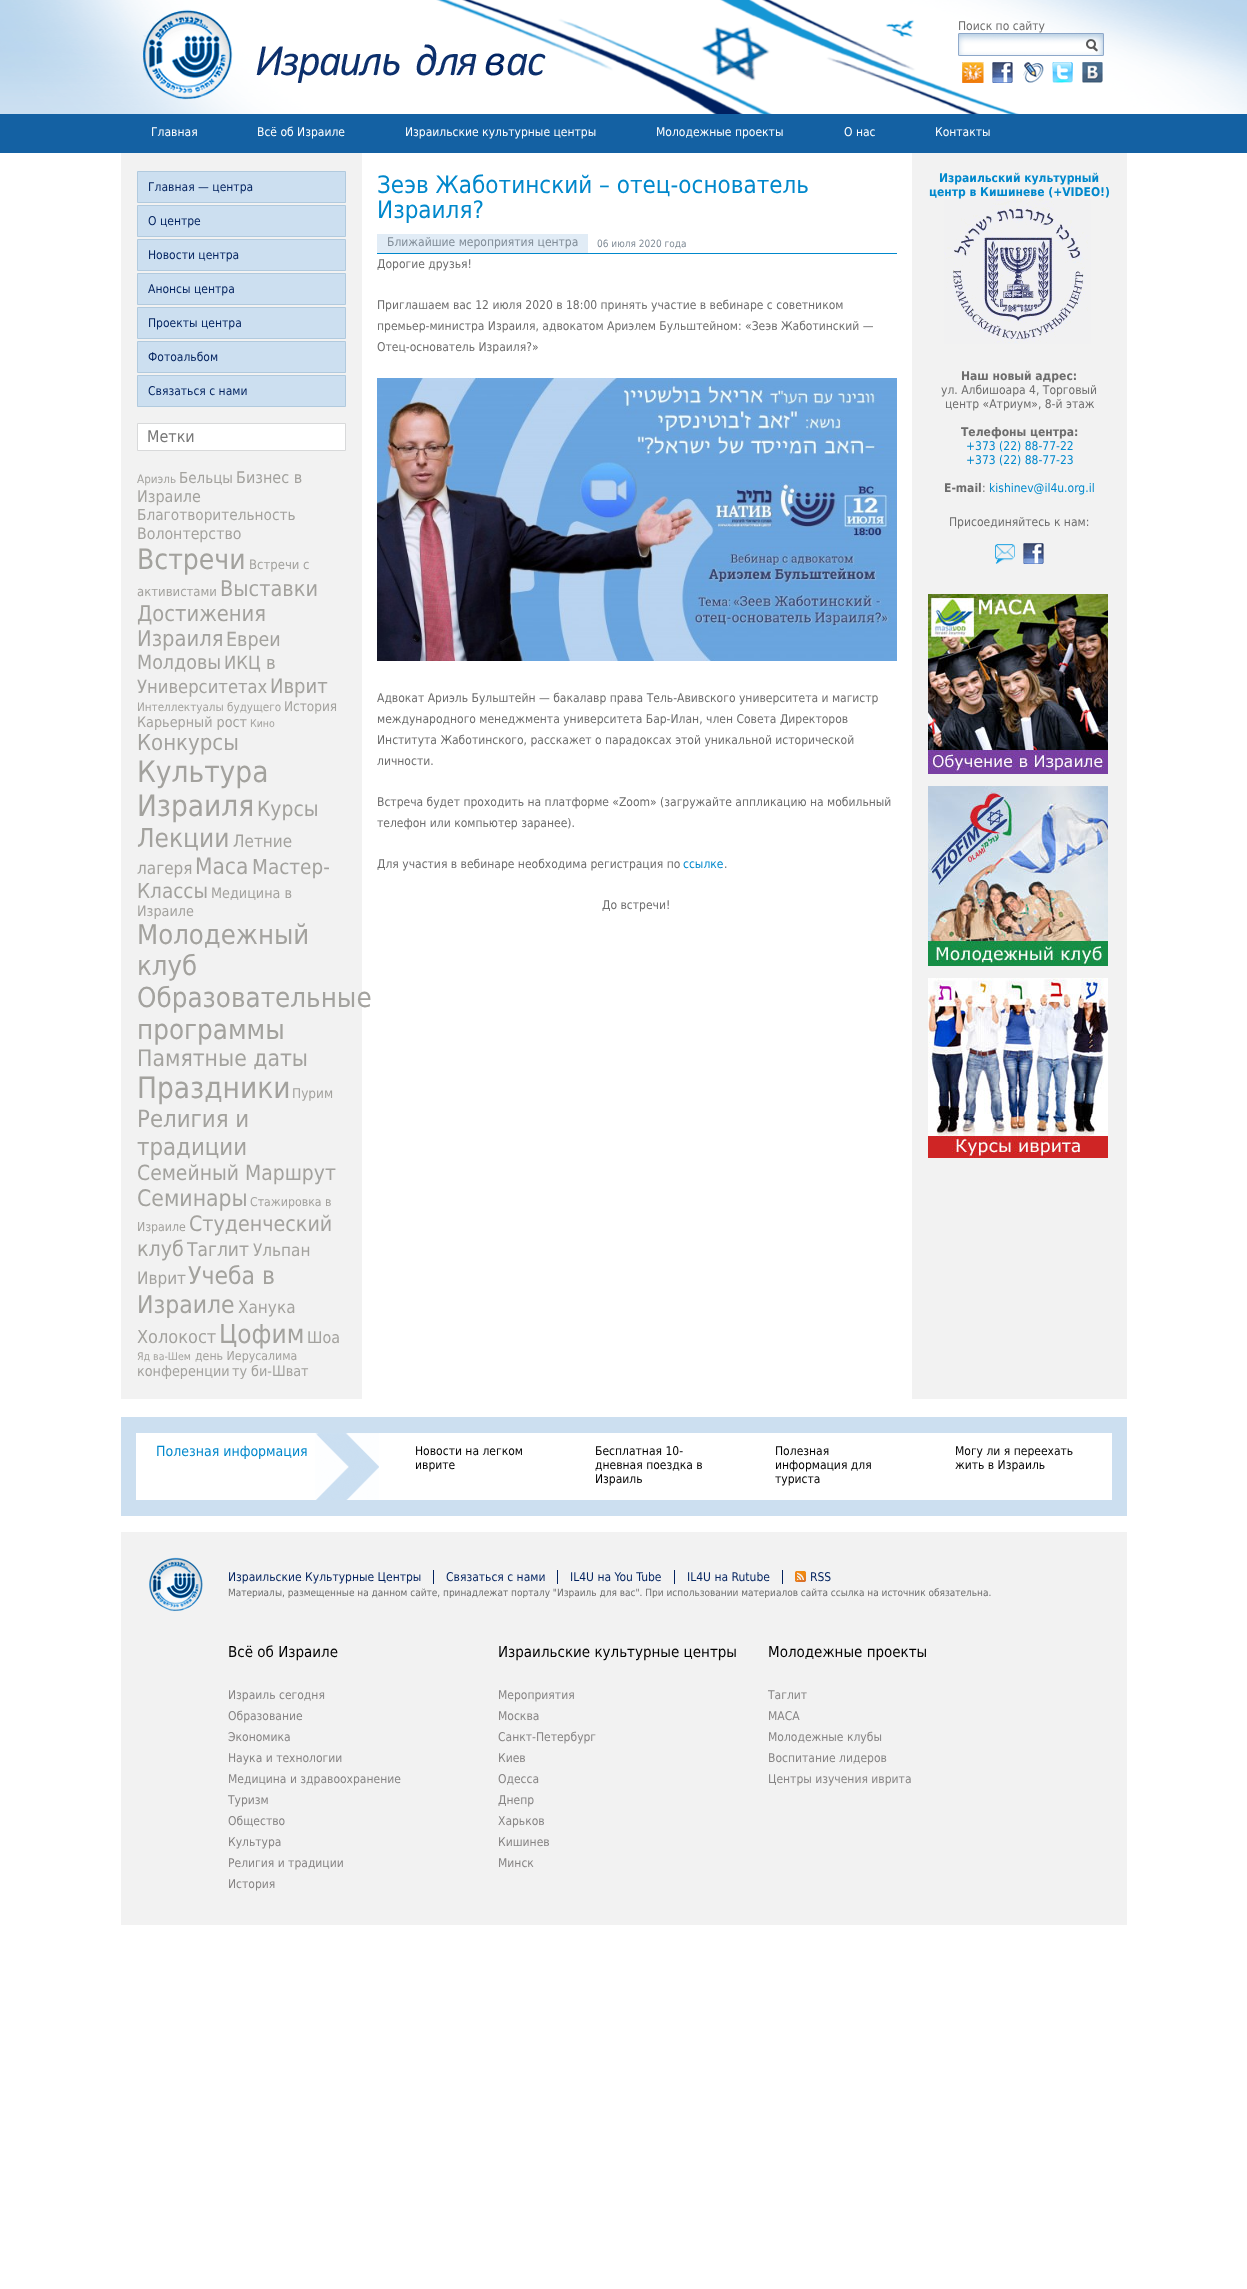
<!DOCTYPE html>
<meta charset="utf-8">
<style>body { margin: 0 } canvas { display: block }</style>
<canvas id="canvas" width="1247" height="2289"></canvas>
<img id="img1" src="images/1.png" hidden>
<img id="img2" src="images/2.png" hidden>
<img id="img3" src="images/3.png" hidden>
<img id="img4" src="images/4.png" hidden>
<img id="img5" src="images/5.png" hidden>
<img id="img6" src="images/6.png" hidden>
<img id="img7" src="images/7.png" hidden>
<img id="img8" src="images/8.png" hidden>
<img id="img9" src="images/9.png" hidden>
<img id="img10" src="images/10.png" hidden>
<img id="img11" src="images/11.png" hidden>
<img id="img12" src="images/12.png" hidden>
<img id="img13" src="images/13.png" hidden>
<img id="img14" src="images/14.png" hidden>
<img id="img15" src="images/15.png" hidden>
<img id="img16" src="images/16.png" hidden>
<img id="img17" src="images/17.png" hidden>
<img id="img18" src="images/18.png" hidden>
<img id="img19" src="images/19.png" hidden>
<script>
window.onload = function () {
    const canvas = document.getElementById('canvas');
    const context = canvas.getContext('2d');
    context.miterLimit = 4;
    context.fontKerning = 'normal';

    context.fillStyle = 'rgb(255, 255, 255)';
    context.fillRect(0, 0, 1247, 2289);
    context.drawImage(document.getElementById('img1'), 0, 0, 1247, 114);
    context.drawImage(document.getElementById('img2'), 142, 9, 404, 91);
    context.drawImage(document.getElementById('img3'), 958, 33, 127, 23);
    context.drawImage(document.getElementById('img4'), 1085, 33, 19, 23);
    context.drawImage(document.getElementById('img5'), 962, 62, 22, 21);
    context.drawImage(document.getElementById('img6'), 992, 62, 21, 21);
    context.drawImage(document.getElementById('img7'), 1023, 62, 21, 21);
    context.drawImage(document.getElementById('img8'), 1052, 62, 21, 21);
    context.drawImage(document.getElementById('img9'), 1082, 62, 21, 21);
    context.fillStyle = 'rgb(20, 97, 163)';
    context.fillRect(0, 114, 1247, 39);
    context.fillStyle = 'rgb(242, 242, 242)';
    context.fillRect(121, 153, 1006, 1246);
    context.fillStyle = 'rgb(255, 255, 255)';
    context.fillRect(362, 153, 550, 1246);
    context.fillStyle = 'rgb(204, 223, 240)';
    context.beginPath();
    context.rect(137.5, 171.5, 208, 31);
    context.fill();
    context.strokeStyle = 'rgb(177, 202, 222)';
    context.stroke();
    context.beginPath();
    context.rect(137.5, 205.5, 208, 31);
    context.fill();
    context.stroke();
    context.beginPath();
    context.rect(137.5, 239.5, 208, 31);
    context.fill();
    context.stroke();
    context.beginPath();
    context.rect(137.5, 273.5, 208, 31);
    context.fill();
    context.stroke();
    context.beginPath();
    context.rect(137.5, 307.5, 208, 31);
    context.fill();
    context.stroke();
    context.beginPath();
    context.rect(137.5, 341.5, 208, 31);
    context.fill();
    context.stroke();
    context.beginPath();
    context.rect(137.5, 375.5, 208, 31);
    context.fill();
    context.stroke();
    context.fillStyle = 'rgb(255, 255, 255)';
    context.beginPath();
    context.rect(137.5, 423.5, 208, 27);
    context.fill();
    context.strokeStyle = 'rgb(216, 217, 218)';
    context.stroke();
    context.fillStyle = 'rgb(0, 136, 204)';
    context.fillRect(377, 253, 520, 1);
    context.fillStyle = 'rgb(225, 236, 246)';
    context.fillRect(377, 234, 211, 19);
    context.drawImage(document.getElementById('img10'), 377, 378, 520, 283);
    context.drawImage(document.getElementById('img11'), 944, 199, 147, 145);
    context.drawImage(document.getElementById('img12'), 995, 544, 20, 20);
    context.drawImage(document.getElementById('img13'), 1023, 543, 21, 21);
    context.drawImage(document.getElementById('img14'), 928, 594, 180, 180);
    context.drawImage(document.getElementById('img15'), 928, 786, 180, 180);
    context.drawImage(document.getElementById('img16'), 928, 978, 180, 180);
    context.fillStyle = 'rgb(204, 223, 240)';
    context.fillRect(121, 1417, 1006, 99);
    context.fillStyle = 'rgb(255, 255, 255)';
    context.fillRect(136, 1433, 976, 67);
    context.drawImage(document.getElementById('img17'), 315, 1433, 64, 67);
    context.fillStyle = 'rgb(242, 242, 242)';
    context.fillRect(121, 1532, 1006, 393);
    context.drawImage(document.getElementById('img18'), 149, 1557, 54, 55);
    context.fillStyle = 'rgb(2, 34, 95)';
    context.fillRect(433, 1570, 1, 14);
    context.fillRect(557, 1570, 1, 14);
    context.fillRect(674, 1570, 1, 14);
    context.fillRect(782, 1570, 1, 14);
    context.drawImage(document.getElementById('img19'), 795, 1571, 11, 11);
    context.font = '12px DejaVu Sans';
    context.fillStyle = 'rgb(109, 109, 109)';
    context.fillText('Поиск по сайту', 958, 30);
    context.fillStyle = 'rgb(255, 255, 255)';
    context.fillText('Главная', 151, 136);
    context.fillText('Всё об Израиле', 257, 136);
    context.fillText('Израильские культурные центры', 405, 136);
    context.fillText('Молодежные проекты', 656, 136);
    context.fillText('О нас', 844, 136);
    context.fillText('Контакты', 935, 136);
    context.fillStyle = 'rgb(2, 34, 95)';
    context.fillText('Главная — центра', 148, 191);
    context.fillText('О центре', 148, 225);
    context.fillText('Новости центра', 148, 259);
    context.fillText('Анонсы центра', 148, 293);
    context.fillText('Проекты центра', 148, 327);
    context.fillText('Фотоальбом', 148, 361);
    context.fillText('Связаться с нами', 148, 395);
    context.font = '16px DejaVu Sans';
    context.fillStyle = 'rgb(120, 120, 120)';
    context.fillText('Метки', 147, 442);
    context.font = '11.6px DejaVu Sans';
    context.fillStyle = 'rgb(163, 162, 158)';
    context.fillText('Ариэль', 137, 483);
    context.font = '15px DejaVu Sans';
    context.fillText('Бельцы', 179, 483);
    context.font = '16px DejaVu Sans';
    context.fillText('Бизнес в', 236, 483);
    context.fillText('Израиле', 137, 502);
    context.font = '15.25px DejaVu Sans';
    context.fillText('Благотворительность', 137, 520);
    context.font = '15.75px DejaVu Sans';
    context.fillText('Волонтерство', 137, 539);
    context.font = '28px DejaVu Sans';
    context.fillText('Встречи', 137, 569);
    context.font = '13px DejaVu Sans';
    context.fillText('Встречи с', 249, 569);
    context.fillText('активистами', 137, 596);
    context.font = '21.5px DejaVu Sans';
    context.fillText('Выставки', 220, 596);
    context.font = '21.75px DejaVu Sans';
    context.fillText('Достижения', 137, 621);
    context.fillText('Израиля', 137, 646);
    context.font = '19.5px DejaVu Sans';
    context.fillText('Евреи', 226, 646);
    context.fillText('Молдовы', 137, 669);
    context.font = '18.25px DejaVu Sans';
    context.fillText('ИКЦ в', 224, 669);
    context.fillText('Университетах', 137, 693);
    context.font = '20px DejaVu Sans';
    context.fillText('Иврит', 270, 693);
    context.font = '11.6px DejaVu Sans';
    context.fillText('Интеллектуалы будущего', 137, 711);
    context.font = '13.5px DejaVu Sans';
    context.fillText('История', 284, 711);
    context.font = '14.25px DejaVu Sans';
    context.fillText('Карьерный рост', 137, 727);
    context.font = '10.5px DejaVu Sans';
    context.fillText('Кино', 250, 727);
    context.font = '22px DejaVu Sans';
    context.fillText('Конкурсы', 137, 750);
    context.font = '29.5px DejaVu Sans';
    context.fillText('Культура', 137, 782);
    context.fillText('Израиля', 137, 816);
    context.font = '20.9px DejaVu Sans';
    context.fillText('Курсы', 257, 816);
    context.font = '26px DejaVu Sans';
    context.fillText('Лекции', 137, 847);
    context.font = '17px DejaVu Sans';
    context.fillText('Летние', 233, 847);
    context.fillText('лагеря', 137, 874);
    context.font = '22.5px DejaVu Sans';
    context.fillText('Маса', 195, 874);
    context.font = '20.5px DejaVu Sans';
    context.fillText('Мастер-', 252, 874);
    context.fillText('Классы', 137, 898);
    context.font = '14.25px DejaVu Sans';
    context.fillText('Медицина в', 211, 898);
    context.fillText('Израиле', 137, 916);
    context.font = '27.25px DejaVu Sans';
    context.fillText('Молодежный', 137, 944);
    context.fillText('клуб', 137, 975);
    context.font = '27.5px DejaVu Sans';
    context.fillText('Образовательные', 137, 1007);
    context.fillText('программы', 137, 1039);
    context.font = '22.75px DejaVu Sans';
    context.fillText('Памятные даты', 137, 1066);
    context.font = '29.5px DejaVu Sans';
    context.fillText('Праздники', 137, 1098);
    context.font = '13.5px DejaVu Sans';
    context.fillText('Пурим', 292, 1098);
    context.font = '23.75px DejaVu Sans';
    context.fillText('Религия и', 137, 1127);
    context.fillText('традиции', 137, 1155);
    context.font = '20.9px DejaVu Sans';
    context.fillText('Семейный Маршрут', 137, 1180);
    context.font = '22.75px DejaVu Sans';
    context.fillText('Семинары', 137, 1206);
    context.font = '12.25px DejaVu Sans';
    context.fillText('Стажировка в', 250, 1206);
    context.fillText('Израиле', 137, 1231);
    context.font = '21.25px DejaVu Sans';
    context.fillText('Студенческий', 189, 1231);
    context.fillText('клуб', 137, 1256);
    context.font = '19px DejaVu Sans';
    context.fillText('Таглит', 187, 1256);
    context.font = '17px DejaVu Sans';
    context.fillText('Ульпан', 253, 1256);
    context.fillText('Иврит', 137, 1284);
    context.font = '24.5px DejaVu Sans';
    context.fillText('Учеба в', 188, 1284);
    context.fillText('Израиле', 137, 1313);
    context.font = '17px DejaVu Sans';
    context.fillText('Ханука', 238, 1313);
    context.font = '18px DejaVu Sans';
    context.fillText('Холокост', 137, 1343);
    context.font = '26px DejaVu Sans';
    context.fillText('Цофим', 219, 1343);
    context.font = '16px DejaVu Sans';
    context.fillText('Шоа', 307, 1343);
    context.font = '10.5px DejaVu Sans';
    context.fillText('Яд ва-Шем', 137, 1360);
    context.font = '12.25px DejaVu Sans';
    context.fillText('день Иерусалима', 195, 1360);
    context.font = '14.25px DejaVu Sans';
    context.fillText('конференции', 137, 1376);
    context.fillText('ту би-Шват', 232, 1376);
    context.font = '24px DejaVu Sans';
    context.fillStyle = 'rgb(0, 136, 204)';
    context.fillText('Зеэв Жаботинский – отец-основатель', 377, 193);
    context.fillText('Израиля?', 377, 218);
    context.font = '12px DejaVu Sans';
    context.fillStyle = 'rgb(128, 140, 151)';
    context.fillText('Ближайшие мероприятия центра', 387, 246);
    context.font = '10px DejaVu Sans';
    context.fillText('06 июля 2020 года', 597, 247);
    context.font = '12px DejaVu Sans';
    context.fillStyle = 'rgb(109, 109, 109)';
    context.fillText('Дорогие друзья!', 377, 268);
    context.fillText('Приглашаем вас 12 июля 2020 в 18:00 принять участие в вебинаре с советником', 377, 309);
    context.fillText('премьер-министра Израиля, адвокатом Ариэлем Бульштейном: «Зеэв Жаботинский —', 377, 330);
    context.fillText('Отец-основатель Израиля?»', 377, 351);
    context.fillText('Адвокат Ариэль Бульштейн — бакалавр права Тель-Авивского университета и магистр', 377, 702);
    context.fillText('международного менеджмента университета Бар-Илан, член Совета Директоров', 377, 723);
    context.fillText('Института Жаботинского, расскажет о парадоксах этой уникальной исторической', 377, 744);
    context.fillText('личности.', 377, 765);
    context.fillText('Встреча будет проходить на платформе «Zoom» (загружайте аппликацию на мобильный', 377, 806);
    context.fillText('телефон или компьютер заранее).', 377, 827);
    context.fillText('Для участия в вебинаре необходима регистрация по', 377, 868);
    context.fillStyle = 'rgb(0, 136, 204)';
    context.fillText('ссылке', 683, 868);
    context.fillStyle = 'rgb(109, 109, 109)';
    context.fillText('.', 724, 868);
    context.fillText('До встречи!', 602, 909);
    context.font = 'bold 12px DejaVu Sans';
    context.fillStyle = 'rgb(0, 136, 204)';
    context.fillText('Израильский культурный', 939, 182);
    context.fillText('центр в Кишиневе (+VIDEO!)', 929, 196);
    context.fillStyle = 'rgb(109, 109, 109)';
    context.fillText('Наш новый адрес:', 961, 380);
    context.font = '12px DejaVu Sans';
    context.fillText('ул. Албишоара 4, Торговый', 941, 394);
    context.fillText('центр «Атриум», 8-й этаж', 945, 408);
    context.font = 'bold 12px DejaVu Sans';
    context.fillText('Телефоны центра:', 961, 436);
    context.font = '12px DejaVu Sans';
    context.fillStyle = 'rgb(0, 136, 204)';
    context.fillText('+373 (22) 88-77-22', 966, 450);
    context.fillText('+373 (22) 88-77-23', 966, 464);
    context.font = 'bold 12px DejaVu Sans';
    context.fillStyle = 'rgb(109, 109, 109)';
    context.fillText('E-mail', 944, 492);
    context.font = '12px DejaVu Sans';
    context.fillText(':', 982, 492);
    context.fillStyle = 'rgb(0, 136, 204)';
    context.fillText('kishinev@il4u.org.il', 989, 492);
    context.fillStyle = 'rgb(109, 109, 109)';
    context.fillText('Присоединяйтесь к нам:', 949, 526);
    context.font = '14px DejaVu Sans';
    context.fillStyle = 'rgb(0, 136, 204)';
    context.fillText('Полезная информация', 156, 1456);
    context.font = '12px DejaVu Sans';
    context.fillStyle = 'rgb(0, 0, 0)';
    context.fillText('Новости на легком', 415, 1455);
    context.fillText('иврите', 415, 1469);
    context.fillText('Бесплатная 10-', 595, 1455);
    context.fillText('дневная поездка в', 595, 1469);
    context.fillText('Израиль', 595, 1483);
    context.fillText('Полезная', 775, 1455);
    context.fillText('информация для', 775, 1469);
    context.fillText('туриста', 775, 1483);
    context.fillText('Могу ли я переехать', 955, 1455);
    context.fillText('жить в Израиль', 955, 1469);
    context.fillStyle = 'rgb(2, 34, 95)';
    context.fillText('Израильские Культурные Центры', 228, 1581);
    context.fillText('Связаться с нами', 446, 1581);
    context.fillText('IL4U на You Tube', 570, 1581);
    context.fillText('IL4U на Rutube', 687, 1581);
    context.fillText('RSS', 810, 1581);
    context.font = '10px DejaVu Sans';
    context.fillStyle = 'rgb(109, 109, 109)';
    context.fillText('Материалы, размещенные на данном сайте, принадлежат порталу "Израиль для вас". При использовании материалов сайта ссылка на источник обязательна.', 228, 1596);
    context.font = '15px DejaVu Sans';
    context.fillStyle = 'rgb(0, 0, 0)';
    context.fillText('Всё об Израиле', 228, 1657);
    context.font = '12px DejaVu Sans';
    context.fillStyle = 'rgb(134, 132, 132)';
    context.fillText('Израиль сегодня', 228, 1699);
    context.fillText('Образование', 228, 1720);
    context.fillText('Экономика', 228, 1741);
    context.fillText('Наука и технологии', 228, 1762);
    context.fillText('Медицина и здравоохранение', 228, 1783);
    context.fillText('Туризм', 228, 1804);
    context.fillText('Общество', 228, 1825);
    context.fillText('Культура', 228, 1846);
    context.fillText('Религия и традиции', 228, 1867);
    context.fillText('История', 228, 1888);
    context.font = '15px DejaVu Sans';
    context.fillStyle = 'rgb(0, 0, 0)';
    context.fillText('Израильские культурные центры', 498, 1657);
    context.font = '12px DejaVu Sans';
    context.fillStyle = 'rgb(134, 132, 132)';
    context.fillText('Мероприятия', 498, 1699);
    context.fillText('Москва', 498, 1720);
    context.fillText('Санкт-Петербург', 498, 1741);
    context.fillText('Киев', 498, 1762);
    context.fillText('Одесса', 498, 1783);
    context.fillText('Днепр', 498, 1804);
    context.fillText('Харьков', 498, 1825);
    context.fillText('Кишинев', 498, 1846);
    context.fillText('Минск', 498, 1867);
    context.font = '15px DejaVu Sans';
    context.fillStyle = 'rgb(0, 0, 0)';
    context.fillText('Молодежные проекты', 768, 1657);
    context.font = '12px DejaVu Sans';
    context.fillStyle = 'rgb(134, 132, 132)';
    context.fillText('Таглит', 768, 1699);
    context.fillText('МАСА', 768, 1720);
    context.fillText('Молодежные клубы', 768, 1741);
    context.fillText('Воспитание лидеров', 768, 1762);
    context.fillText('Центры изучения иврита', 768, 1783);
};
</script>
